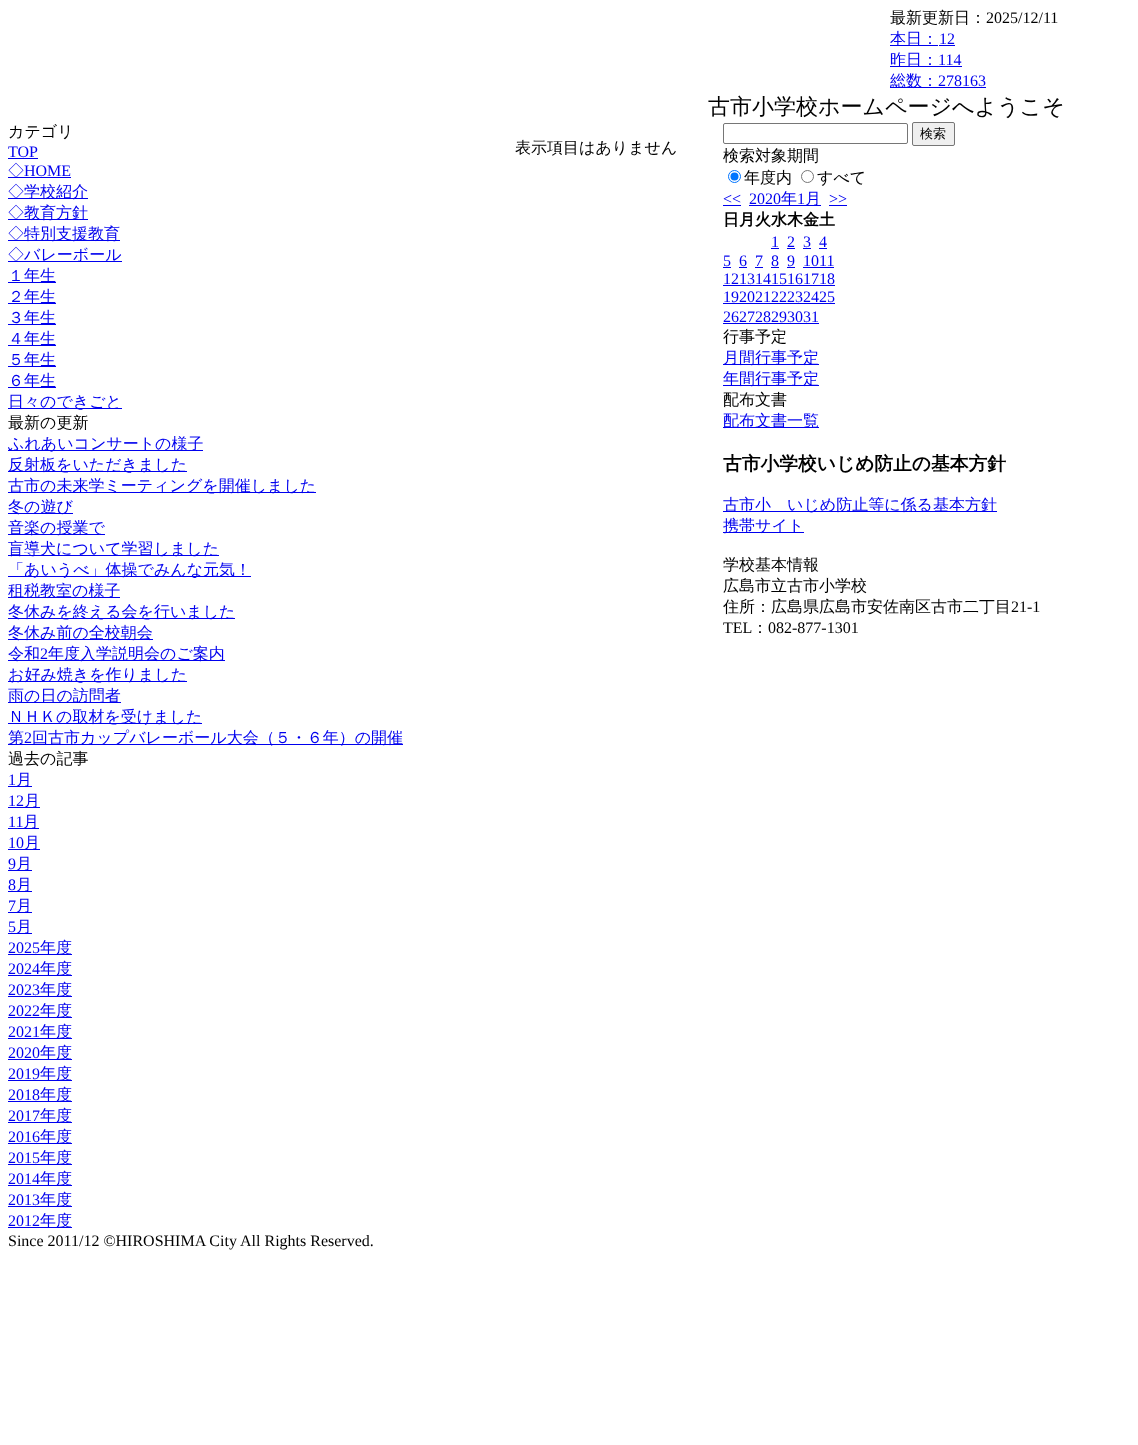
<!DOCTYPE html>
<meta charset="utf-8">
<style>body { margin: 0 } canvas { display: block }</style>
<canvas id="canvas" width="1138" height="1445"></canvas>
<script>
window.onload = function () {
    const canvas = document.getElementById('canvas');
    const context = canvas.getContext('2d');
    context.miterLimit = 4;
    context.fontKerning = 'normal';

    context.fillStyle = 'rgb(255, 255, 255)';
    context.fillRect(0, 0, 1138, 1445);
    context.fillStyle = 'rgb(0, 0, 238)';
    context.fillRect(890, 45, 48, 1);
    context.fillRect(939, 45, 16, 1);
    context.fillRect(890, 66, 72, 1);
    context.fillRect(890, 87, 96, 1);
    context.fillRect(8, 158, 30, 1);
    context.fillRect(8, 177, 63, 1);
    context.fillRect(8, 198, 80, 1);
    context.fillRect(8, 219, 80, 1);
    context.fillRect(8, 240, 112, 1);
    context.fillRect(8, 261, 114, 1);
    context.fillRect(8, 282, 48, 1);
    context.fillRect(8, 303, 48, 1);
    context.fillRect(8, 324, 48, 1);
    context.fillRect(8, 345, 48, 1);
    context.fillRect(8, 366, 48, 1);
    context.fillRect(8, 387, 48, 1);
    context.fillRect(8, 408, 114, 1);
    context.fillRect(8, 450, 195, 1);
    context.fillRect(8, 471, 179, 1);
    context.fillRect(8, 492, 308, 1);
    context.fillRect(8, 513, 65, 1);
    context.fillRect(8, 534, 97, 1);
    context.fillRect(8, 555, 211, 1);
    context.fillRect(8, 576, 243, 1);
    context.fillRect(8, 597, 112, 1);
    context.fillRect(8, 618, 227, 1);
    context.fillRect(8, 639, 145, 1);
    context.fillRect(8, 660, 217, 1);
    context.fillRect(8, 681, 179, 1);
    context.fillRect(8, 702, 113, 1);
    context.fillRect(8, 723, 194, 1);
    context.fillRect(8, 744, 395, 1);
    context.fillRect(8, 786, 24, 1);
    context.fillRect(8, 807, 32, 1);
    context.fillRect(8, 828, 31, 1);
    context.fillRect(8, 849, 32, 1);
    context.fillRect(8, 870, 24, 1);
    context.fillRect(8, 891, 24, 1);
    context.fillRect(8, 912, 24, 1);
    context.fillRect(8, 933, 24, 1);
    context.fillRect(8, 954, 64, 1);
    context.fillRect(8, 975, 64, 1);
    context.fillRect(8, 996, 64, 1);
    context.fillRect(8, 1017, 64, 1);
    context.fillRect(8, 1038, 64, 1);
    context.fillRect(8, 1059, 64, 1);
    context.fillRect(8, 1080, 64, 1);
    context.fillRect(8, 1101, 64, 1);
    context.fillRect(8, 1122, 64, 1);
    context.fillRect(8, 1143, 64, 1);
    context.fillRect(8, 1164, 64, 1);
    context.fillRect(8, 1185, 64, 1);
    context.fillRect(8, 1206, 64, 1);
    context.fillRect(8, 1227, 64, 1);
    context.beginPath();
    context.roundRect(723.5, 123.5, 184, 20, 1.5);
    context.strokeStyle = 'rgb(118, 118, 118)';
    context.stroke();
    context.fillStyle = 'rgb(239, 239, 239)';
    context.beginPath();
    context.roundRect(912.5, 122.5, 42, 23, 1.5);
    context.fill();
    context.stroke();
    context.beginPath();
    context.arc(734.5, 176.5, 6, 0, 2 * Math.PI);
    context.strokeStyle = 'rgb(0, 117, 255)';
    context.stroke();
    context.fillStyle = 'rgb(0, 117, 255)';
    context.beginPath();
    context.arc(734.5, 176.5, 4, 0, 2 * Math.PI);
    context.fill();
    context.beginPath();
    context.arc(807.5, 176.5, 6, 0, 2 * Math.PI);
    context.strokeStyle = 'rgb(118, 118, 118)';
    context.stroke();
    context.fillStyle = 'rgb(0, 0, 238)';
    context.fillRect(723, 205, 18, 1);
    context.fillRect(749, 205, 72, 1);
    context.fillRect(829, 205, 18, 1);
    context.fillRect(771, 248, 8, 1);
    context.fillRect(787, 248, 8, 1);
    context.fillRect(803, 248, 8, 1);
    context.fillRect(819, 248, 8, 1);
    context.fillRect(723, 267, 8, 1);
    context.fillRect(739, 267, 8, 1);
    context.fillRect(755, 267, 8, 1);
    context.fillRect(771, 267, 8, 1);
    context.fillRect(787, 267, 8, 1);
    context.fillRect(803, 267, 31, 1);
    context.fillRect(723, 285, 112, 1);
    context.fillRect(723, 303, 112, 1);
    context.fillRect(723, 323, 96, 1);
    context.fillRect(723, 364, 96, 1);
    context.fillRect(723, 385, 96, 1);
    context.fillRect(723, 427, 96, 1);
    context.fillRect(723, 511, 274, 1);
    context.fillRect(723, 532, 81, 1);
    context.font = '500 16px WenQuanYi Zen Hei';
    context.fillStyle = 'rgb(0, 0, 0)';
    context.fillText('最新更新日：', 890, 23);
    context.font = '16px Liberation Serif';
    context.fillText('2025/12/11', 986, 23);
    context.font = '500 16px WenQuanYi Zen Hei';
    context.fillStyle = 'rgb(0, 0, 238)';
    context.fillText('本日：', 890, 44);
    context.font = '16px Liberation Serif';
    context.fillText('12', 939, 44);
    context.font = '500 16px WenQuanYi Zen Hei';
    context.fillText('昨日：', 890, 65);
    context.font = '16px Liberation Serif';
    context.fillText('114', 938, 65);
    context.font = '500 16px WenQuanYi Zen Hei';
    context.fillText('総数：', 890, 86);
    context.font = '16px Liberation Serif';
    context.fillText('278163', 938, 86);
    context.font = '500 22px WenQuanYi Zen Hei';
    context.fillStyle = 'rgb(0, 0, 0)';
    context.fillText('古市小学校ホームページへようこそ', 708, 114);
    context.font = '500 16px WenQuanYi Zen Hei';
    context.fillText('カテゴリ', 8, 137);
    context.font = '16px Liberation Serif';
    context.fillStyle = 'rgb(0, 0, 238)';
    context.fillText('TOP', 8, 157);
    context.font = '500 16px WenQuanYi Zen Hei';
    context.fillText('◇', 8, 176);
    context.font = '16px Liberation Serif';
    context.fillText('HOME', 24, 176);
    context.font = '500 16px WenQuanYi Zen Hei';
    context.fillText('◇学校紹介', 8, 197);
    context.fillText('◇教育方針', 8, 218);
    context.fillText('◇特別支援教育', 8, 239);
    context.fillText('◇バレーボール', 8, 260);
    context.fillText('１年生', 8, 281);
    context.fillText('２年生', 8, 302);
    context.fillText('３年生', 8, 323);
    context.fillText('４年生', 8, 344);
    context.fillText('５年生', 8, 365);
    context.fillText('６年生', 8, 386);
    context.fillText('日々のできごと', 8, 407);
    context.fillStyle = 'rgb(0, 0, 0)';
    context.fillText('最新の更新', 8, 428);
    context.fillStyle = 'rgb(0, 0, 238)';
    context.fillText('ふれあいコンサートの様子', 8, 449);
    context.fillText('反射板をいただきました', 8, 470);
    context.fillText('古市の未来学ミーティングを開催しました', 8, 491);
    context.fillText('冬の遊び', 8, 512);
    context.fillText('音楽の授業で', 8, 533);
    context.fillText('盲導犬について学習しました', 8, 554);
    context.fillText('「あいうべ」体操でみんな元気！', 8, 575);
    context.fillText('租税教室の様子', 8, 596);
    context.fillText('冬休みを終える会を行いました', 8, 617);
    context.fillText('冬休み前の全校朝会', 8, 638);
    context.fillText('令和', 8, 659);
    context.font = '16px Liberation Serif';
    context.fillText('2', 40, 659);
    context.font = '500 16px WenQuanYi Zen Hei';
    context.fillText('年度入学説明会のご案内', 48, 659);
    context.fillText('お好み焼きを作りました', 8, 680);
    context.fillText('雨の日の訪問者', 8, 701);
    context.fillText('ＮＨＫの取材を受けました', 8, 722);
    context.fillText('第', 8, 743);
    context.font = '16px Liberation Serif';
    context.fillText('2', 24, 743);
    context.font = '500 16px WenQuanYi Zen Hei';
    context.fillText('回古市カップバレーボール大会（５・６年）の開催', 32, 743);
    context.fillStyle = 'rgb(0, 0, 0)';
    context.fillText('過去の記事', 8, 764);
    context.font = '16px Liberation Serif';
    context.fillStyle = 'rgb(0, 0, 238)';
    context.fillText('1', 8, 785);
    context.font = '500 16px WenQuanYi Zen Hei';
    context.fillText('月', 16, 785);
    context.font = '16px Liberation Serif';
    context.fillText('12', 8, 806);
    context.font = '500 16px WenQuanYi Zen Hei';
    context.fillText('月', 24, 806);
    context.font = '16px Liberation Serif';
    context.fillText('11', 8, 827);
    context.font = '500 16px WenQuanYi Zen Hei';
    context.fillText('月', 23, 827);
    context.font = '16px Liberation Serif';
    context.fillText('10', 8, 848);
    context.font = '500 16px WenQuanYi Zen Hei';
    context.fillText('月', 24, 848);
    context.font = '16px Liberation Serif';
    context.fillText('9', 8, 869);
    context.font = '500 16px WenQuanYi Zen Hei';
    context.fillText('月', 16, 869);
    context.font = '16px Liberation Serif';
    context.fillText('8', 8, 890);
    context.font = '500 16px WenQuanYi Zen Hei';
    context.fillText('月', 16, 890);
    context.font = '16px Liberation Serif';
    context.fillText('7', 8, 911);
    context.font = '500 16px WenQuanYi Zen Hei';
    context.fillText('月', 16, 911);
    context.font = '16px Liberation Serif';
    context.fillText('5', 8, 932);
    context.font = '500 16px WenQuanYi Zen Hei';
    context.fillText('月', 16, 932);
    context.font = '16px Liberation Serif';
    context.fillText('2025', 8, 953);
    context.font = '500 16px WenQuanYi Zen Hei';
    context.fillText('年度', 40, 953);
    context.font = '16px Liberation Serif';
    context.fillText('2024', 8, 974);
    context.font = '500 16px WenQuanYi Zen Hei';
    context.fillText('年度', 40, 974);
    context.font = '16px Liberation Serif';
    context.fillText('2023', 8, 995);
    context.font = '500 16px WenQuanYi Zen Hei';
    context.fillText('年度', 40, 995);
    context.font = '16px Liberation Serif';
    context.fillText('2022', 8, 1016);
    context.font = '500 16px WenQuanYi Zen Hei';
    context.fillText('年度', 40, 1016);
    context.font = '16px Liberation Serif';
    context.fillText('2021', 8, 1037);
    context.font = '500 16px WenQuanYi Zen Hei';
    context.fillText('年度', 40, 1037);
    context.font = '16px Liberation Serif';
    context.fillText('2020', 8, 1058);
    context.font = '500 16px WenQuanYi Zen Hei';
    context.fillText('年度', 40, 1058);
    context.font = '16px Liberation Serif';
    context.fillText('2019', 8, 1079);
    context.font = '500 16px WenQuanYi Zen Hei';
    context.fillText('年度', 40, 1079);
    context.font = '16px Liberation Serif';
    context.fillText('2018', 8, 1100);
    context.font = '500 16px WenQuanYi Zen Hei';
    context.fillText('年度', 40, 1100);
    context.font = '16px Liberation Serif';
    context.fillText('2017', 8, 1121);
    context.font = '500 16px WenQuanYi Zen Hei';
    context.fillText('年度', 40, 1121);
    context.font = '16px Liberation Serif';
    context.fillText('2016', 8, 1142);
    context.font = '500 16px WenQuanYi Zen Hei';
    context.fillText('年度', 40, 1142);
    context.font = '16px Liberation Serif';
    context.fillText('2015', 8, 1163);
    context.font = '500 16px WenQuanYi Zen Hei';
    context.fillText('年度', 40, 1163);
    context.font = '16px Liberation Serif';
    context.fillText('2014', 8, 1184);
    context.font = '500 16px WenQuanYi Zen Hei';
    context.fillText('年度', 40, 1184);
    context.font = '16px Liberation Serif';
    context.fillText('2013', 8, 1205);
    context.font = '500 16px WenQuanYi Zen Hei';
    context.fillText('年度', 40, 1205);
    context.font = '16px Liberation Serif';
    context.fillText('2012', 8, 1226);
    context.font = '500 16px WenQuanYi Zen Hei';
    context.fillText('年度', 40, 1226);
    context.fillStyle = 'rgb(0, 0, 0)';
    context.fillText('表示項目はありません', 515, 153);
    context.font = '500 13px WenQuanYi Zen Hei';
    context.fillText('検索', 920, 138);
    context.font = '500 16px WenQuanYi Zen Hei';
    context.fillText('検索対象期間', 723, 161);
    context.fillText('年度内', 744, 183);
    context.fillText('すべて', 817, 183);
    context.font = '16px Liberation Serif';
    context.fillStyle = 'rgb(0, 0, 238)';
    context.fillText('<<', 723, 204);
    context.fillText('2020', 749, 204);
    context.font = '500 16px WenQuanYi Zen Hei';
    context.fillText('年', 781, 204);
    context.font = '16px Liberation Serif';
    context.fillText('1', 797, 204);
    context.font = '500 16px WenQuanYi Zen Hei';
    context.fillText('月', 805, 204);
    context.font = '16px Liberation Serif';
    context.fillText('>>', 829, 204);
    context.font = 'bold 16px WenQuanYi Zen Hei';
    context.fillStyle = 'rgb(0, 0, 0)';
    context.fillText('日月火水木金土', 723, 225);
    context.font = '16px Liberation Serif';
    context.fillStyle = 'rgb(0, 0, 238)';
    context.fillText('1', 771, 247);
    context.fillText('2', 787, 247);
    context.fillText('3', 803, 247);
    context.fillText('4', 819, 247);
    context.fillText('5', 723, 266);
    context.fillText('6', 739, 266);
    context.fillText('7', 755, 266);
    context.fillText('8', 771, 266);
    context.fillText('9', 787, 266);
    context.fillText('1011', 803, 266);
    context.fillText('12131415161718', 723, 284);
    context.fillText('19202122232425', 723, 302);
    context.fillText('262728293031', 723, 322);
    context.font = '500 16px WenQuanYi Zen Hei';
    context.fillStyle = 'rgb(0, 0, 0)';
    context.fillText('行事予定', 723, 342);
    context.fillStyle = 'rgb(0, 0, 238)';
    context.fillText('月間行事予定', 723, 363);
    context.fillText('年間行事予定', 723, 384);
    context.fillStyle = 'rgb(0, 0, 0)';
    context.fillText('配布文書', 723, 405);
    context.fillStyle = 'rgb(0, 0, 238)';
    context.fillText('配布文書一覧', 723, 426);
    context.font = 'bold 18.75px WenQuanYi Zen Hei';
    context.fillStyle = 'rgb(0, 0, 0)';
    context.fillText('古市小学校いじめ防止の基本方針', 723, 470);
    context.font = '500 16px WenQuanYi Zen Hei';
    context.fillStyle = 'rgb(0, 0, 238)';
    context.fillText('古市小　いじめ防止等に係る基本方針', 723, 510);
    context.fillText('携帯サイト', 723, 531);
    context.fillStyle = 'rgb(0, 0, 0)';
    context.fillText('学校基本情報', 723, 570);
    context.fillText('広島市立古市小学校', 723, 591);
    context.fillText('住所：広島県広島市安佐南区古市二丁目', 723, 612);
    context.font = '16px Liberation Serif';
    context.fillText('21-1', 1011, 612);
    context.fillText('TEL', 723, 633);
    context.font = '500 16px WenQuanYi Zen Hei';
    context.fillText('：', 752, 633);
    context.font = '16px Liberation Serif';
    context.fillText('082-877-1301', 768, 633);
    context.fillText('Since 2011/12 ©HIROSHIMA City All Rights Reserved.', 8, 1246);
};
</script>
